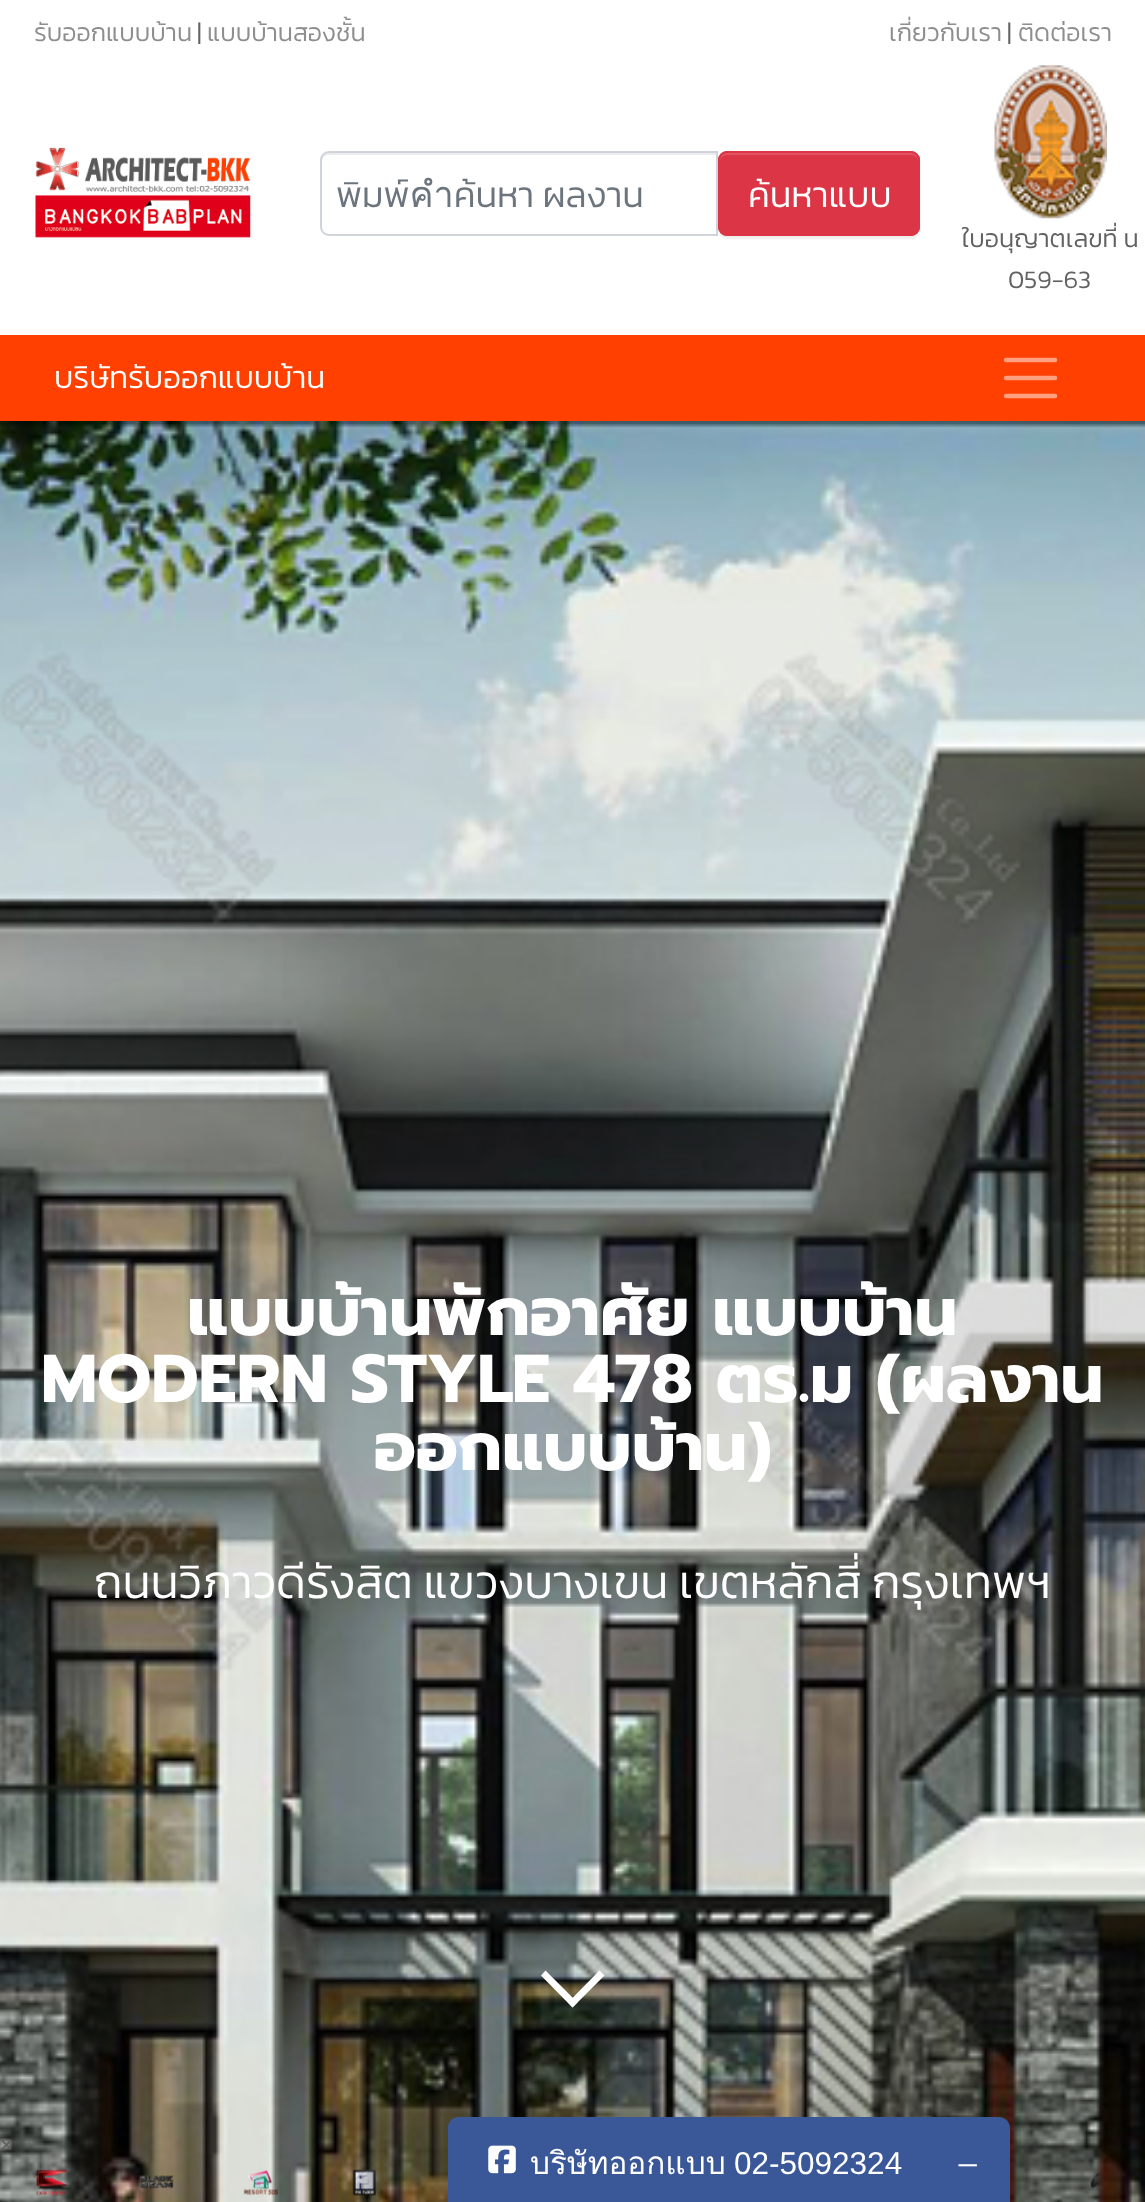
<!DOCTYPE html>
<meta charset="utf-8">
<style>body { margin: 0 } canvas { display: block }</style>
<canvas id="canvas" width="1145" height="2202"></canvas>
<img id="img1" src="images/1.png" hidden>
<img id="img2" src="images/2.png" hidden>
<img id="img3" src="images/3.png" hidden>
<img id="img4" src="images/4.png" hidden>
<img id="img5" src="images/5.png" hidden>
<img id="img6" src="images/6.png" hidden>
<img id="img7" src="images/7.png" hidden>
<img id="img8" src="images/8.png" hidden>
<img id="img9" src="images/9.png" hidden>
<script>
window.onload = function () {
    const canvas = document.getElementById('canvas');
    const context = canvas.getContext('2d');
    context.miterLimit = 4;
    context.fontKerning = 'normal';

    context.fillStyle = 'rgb(255, 255, 255)';
    context.fillRect(0, 0, 1145, 2202);
    context.drawImage(document.getElementById('img1'), 35, 147, 216, 91);
    context.fillStyle = 'rgba(0, 0, 0, 0.07)';
    context.filter = 'blur(1px)';
    context.beginPath();
    context.roundRect(718, 153, 202, 86, 9);
    context.fill();
    context.filter = 'none';
    context.fillStyle = 'rgb(236, 236, 236)';
    context.beginPath();
    context.moveTo(328, 155);
    context.lineTo(716, 155);
    context.lineTo(716, 153);
    context.lineTo(329, 153);
    context.bezierCurveTo(325, 153, 322, 156, 322, 160);
    context.lineTo(322, 162);
    context.bezierCurveTo(322, 158, 325, 155, 328, 155);
    context.closePath();
    context.fill();
    context.beginPath();
    context.roundRect(321, 152, 396, 83, [8, 0, 0, 8]);
    context.strokeStyle = 'rgb(206, 212, 218)';
    context.lineWidth = 2;
    context.stroke();
    context.fillStyle = 'rgb(220, 53, 69)';
    context.beginPath();
    context.roundRect(718, 151, 202, 85, 9);
    context.fill();
    context.fillStyle = 'rgb(225, 83, 97)';
    context.beginPath();
    context.moveTo(727, 155);
    context.lineTo(911, 155);
    context.bezierCurveTo(915, 155, 918, 158, 918, 162);
    context.lineTo(918, 160);
    context.bezierCurveTo(918, 156, 915, 153, 911, 153);
    context.lineTo(727, 153);
    context.bezierCurveTo(723, 153, 720, 156, 720, 160);
    context.lineTo(720, 162);
    context.bezierCurveTo(720, 158, 723, 155, 727, 155);
    context.closePath();
    context.fill();
    context.beginPath();
    context.roundRect(719, 152, 200, 83, 8);
    context.strokeStyle = 'rgb(220, 53, 69)';
    context.stroke();
    context.drawImage(document.getElementById('img2'), 994, 65, 113, 154);
    context.fillStyle = 'rgb(255, 64, 1)';
    context.fillRect(0, 335, 1145, 86);
    context.beginPath();
    context.moveTo(1006, 360);
    context.lineTo(1055, 360);
    context.moveTo(1006, 378);
    context.lineTo(1055, 378);
    context.moveTo(1006, 396);
    context.lineTo(1055, 396);
    context.strokeStyle = 'rgb(255, 160, 128)';
    context.lineWidth = 4.5;
    context.lineCap = 'round';
    context.stroke();
    context.drawImage(document.getElementById('img3'), 0, 421, 1145, 1781);
    context.fillStyle = 'rgb(255, 255, 255)';
    context.beginPath();
    context.moveTo(604.5, 1975.5);
    context.lineTo(572.5, 2007.5);
    context.lineTo(568, 2002.5);
    context.lineTo(599.5, 1970.5);
    context.closePath();
    context.fill();
    context.beginPath();
    context.moveTo(577.5, 2002.5);
    context.lineTo(572.5, 2007.5);
    context.lineTo(541, 1975.5);
    context.lineTo(545.5, 1970.5);
    context.closePath();
    context.fill();
    context.drawImage(document.getElementById('img4'), 35, 2169, 32, 27);
    context.drawImage(document.getElementById('img5'), 139, 2175, 35, 14);
    context.drawImage(document.getElementById('img6'), 243, 2170, 35, 26);
    context.drawImage(document.getElementById('img7'), 352, 2169, 24, 27);
    context.drawImage(document.getElementById('img8'), 1084, 2173, 19, 21);
    context.fillStyle = 'rgba(0, 0, 0, 0.25)';
    context.filter = 'blur(56px)';
    context.beginPath();
    context.roundRect(448, 2140, 562, 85, 11);
    context.fill();
    context.filter = 'none';
    context.fillStyle = 'rgb(58, 88, 151)';
    context.beginPath();
    context.moveTo(459, 2117);
    context.lineTo(999, 2117);
    context.bezierCurveTo(1005, 2117, 1010, 2122, 1010, 2128);
    context.lineTo(1010, 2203);
    context.lineTo(448, 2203);
    context.lineTo(448, 2128);
    context.bezierCurveTo(448, 2122, 453, 2117, 459, 2117);
    context.closePath();
    context.fill();
    context.beginPath();
    context.moveTo(459, 2117);
    context.lineTo(920, 2117);
    context.lineTo(920, 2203);
    context.lineTo(448, 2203);
    context.lineTo(448, 2128);
    context.bezierCurveTo(448, 2122, 453, 2117, 459, 2117);
    context.closePath();
    context.fill();
    context.drawImage(document.getElementById('img9'), 488, 2145, 28, 29);
    context.font = '300 25.25px Kanit';
    context.fillStyle = 'rgb(142, 142, 142)';
    context.fillText('รับออกแบบบ้าน', 34, 41);
    context.fillStyle = 'rgb(98, 98, 98)';
    context.fillText('|', 197, 41);
    context.fillStyle = 'rgb(142, 142, 142)';
    context.fillText('แบบบ้านสองชั้น', 207, 41);
    context.fillText('เกี่ยวกับเรา', 889, 41);
    context.fillStyle = 'rgb(98, 98, 98)';
    context.fillText('|', 1007, 41);
    context.fillStyle = 'rgb(142, 142, 142)';
    context.fillText('ติดต่อเรา', 1018, 41);
    context.save();
    context.beginPath();
    context.rect(335, 167, 367, 54);
    context.clip();
    context.font = '300 36px Kanit';
    context.fillStyle = 'rgb(108, 117, 125)';
    context.fillText('พิมพ์คำค้นหา ผลงาน', 336, 207);
    context.restore();
    context.font = '300 36px Kanit';
    context.fillStyle = 'rgb(255, 255, 255)';
    context.fillText('ค้นหาแบบ', 748, 207);
    context.font = '300 25.25px Kanit';
    context.fillStyle = 'rgb(98, 98, 98)';
    context.fillText('ใบอนุญาตเลขที่ น', 962, 247);
    context.fillText('059-63', 1008, 288);
    context.font = '300 31.5px Kanit';
    context.fillStyle = 'rgb(255, 255, 255)';
    context.fillText('บริษัทรับออกแบบบ้าน', 54, 388);
    context.font = 'bold 67.5px Prompt';
    context.fillText('แบบบ้านพักอาศัย แบบบ้าน', 187, 1335);
    context.fillText('MODERN STYLE 478 ตร.ม (ผลงาน', 41, 1402);
    context.fillText('ออกแบบบ้าน)', 374, 1470);
    context.font = '300 46.8px Kanit';
    context.fillText('ถนนวิภาวดีรังสิต แขวงบางเขน เขตหลักสี่ กรุงเทพฯ', 94, 1598);
    context.font = '300 31.5px Kanit';
    context.fillStyle = 'rgb(98, 98, 98)';
    context.fillText('×', 0, 2153);
    context.font = '31.5px Loma';
    context.fillStyle = 'rgb(255, 255, 255)';
    context.fillText('บริษัทออกแบบ', 530, 2174);
    context.font = '31.5px Liberation Sans';
    context.fillText('02-5092324', 734, 2174);
    context.fillText('_', 959, 2160);
};
</script>
